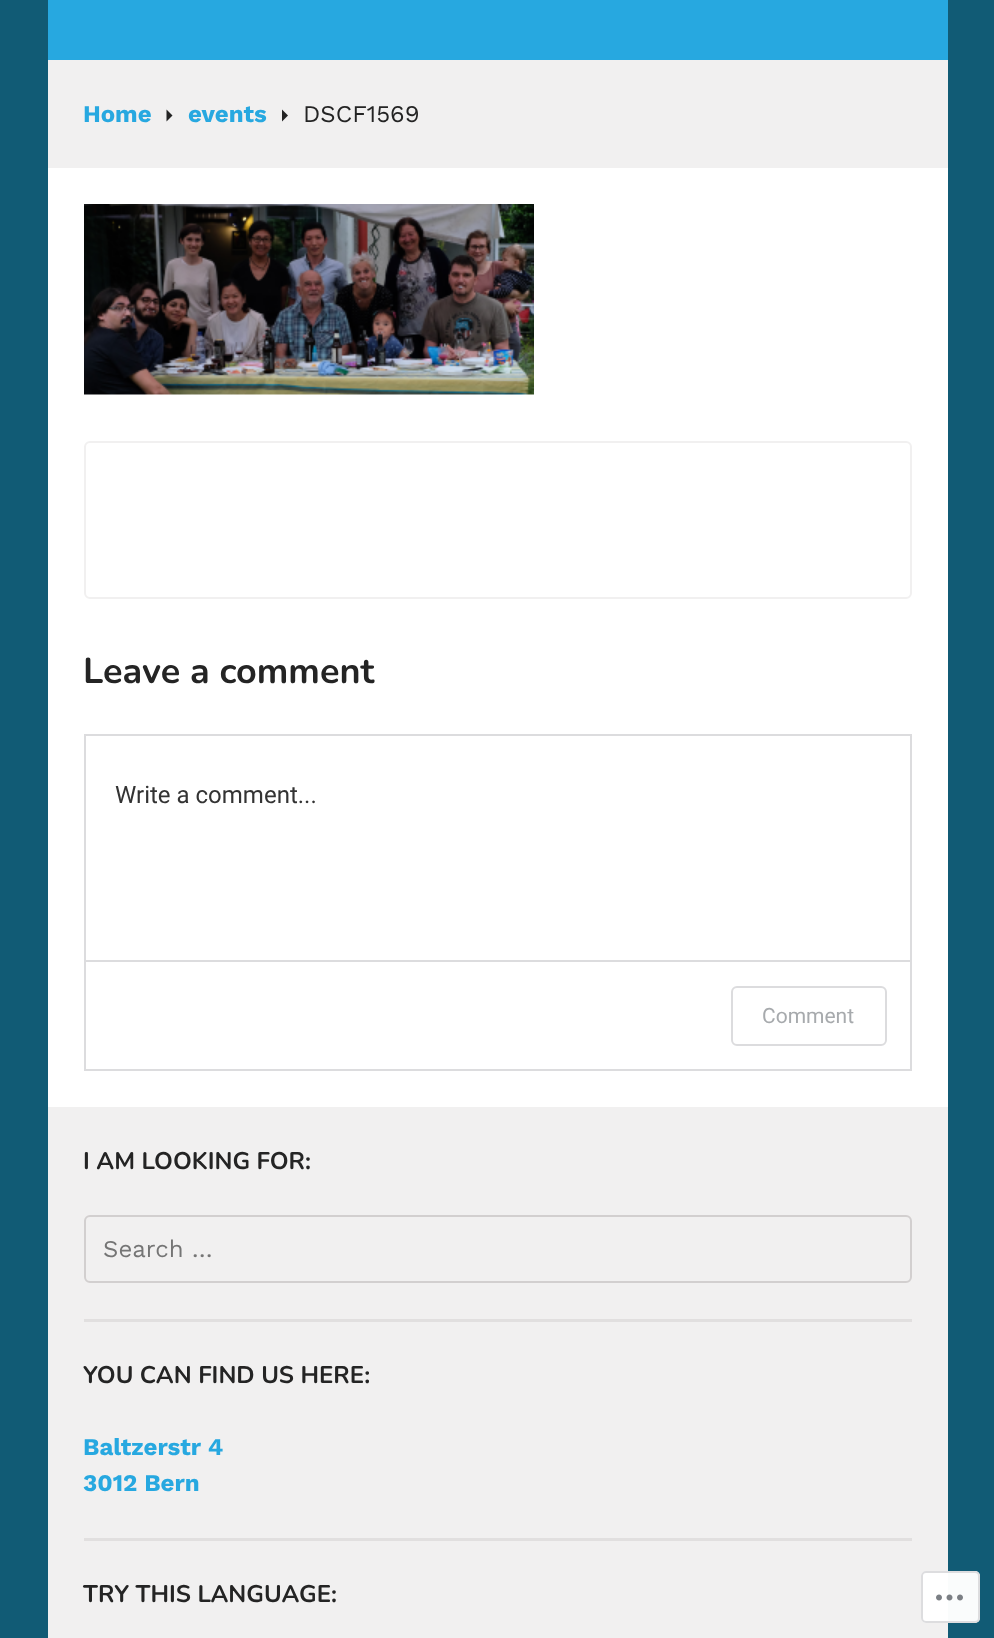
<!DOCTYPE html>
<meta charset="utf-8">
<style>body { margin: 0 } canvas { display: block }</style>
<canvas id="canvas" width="994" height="1638"></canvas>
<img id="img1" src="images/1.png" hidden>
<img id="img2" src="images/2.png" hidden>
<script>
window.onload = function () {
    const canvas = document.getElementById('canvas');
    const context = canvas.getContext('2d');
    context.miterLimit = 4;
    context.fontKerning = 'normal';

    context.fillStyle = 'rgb(17, 91, 117)';
    context.fillRect(0, 0, 994, 1638);
    context.fillStyle = 'rgb(255, 255, 255)';
    context.fillRect(48, 168, 900, 939);
    context.fillStyle = 'rgb(39, 168, 224)';
    context.fillRect(48, 0, 900, 60);
    context.fillStyle = 'rgb(241, 240, 240)';
    context.fillRect(48, 60, 900, 108);
    context.fillStyle = 'rgb(36, 36, 36)';
    context.beginPath();
    context.moveTo(166.5, 121.5);
    context.lineTo(166.5, 109.5);
    context.lineTo(172.5, 115.5);
    context.closePath();
    context.fill();
    context.beginPath();
    context.moveTo(282, 121.5);
    context.lineTo(282, 109.5);
    context.lineTo(288, 115.5);
    context.closePath();
    context.fill();
    context.drawImage(document.getElementById('img1'), 84, 204, 450, 191);
    context.beginPath();
    context.roundRect(85, 442, 826, 156, 5);
    context.strokeStyle = 'rgb(241, 240, 240)';
    context.lineWidth = 2;
    context.stroke();
    context.strokeStyle = 'rgb(220, 220, 222)';
    context.strokeRect(85, 735, 826, 335);
    context.fillStyle = 'rgb(220, 220, 222)';
    context.fillRect(86, 960, 825, 2);
    context.beginPath();
    context.roundRect(732, 987, 154, 58, 5);
    context.stroke();
    context.fillStyle = 'rgb(241, 240, 240)';
    context.fillRect(48, 1107, 900, 531);
    context.beginPath();
    context.roundRect(85, 1216, 826, 66, 5);
    context.strokeStyle = 'rgb(210, 207, 207)';
    context.stroke();
    context.fillStyle = 'rgb(225, 223, 223)';
    context.fillRect(84, 1319, 828, 3);
    context.fillRect(84, 1538, 828, 3);
    context.fillStyle = 'rgba(255, 255, 255, 0.98)';
    context.beginPath();
    context.roundRect(921, 1571, 59, 52, 5);
    context.fill();
    context.beginPath();
    context.roundRect(922, 1572, 57, 50, 4);
    context.strokeStyle = 'rgba(220, 220, 222, 0.98)';
    context.stroke();
    context.drawImage(document.getElementById('img2'), 936, 1594, 27, 7);
    context.font = 'bold 24px Work Sans';
    context.fillStyle = 'rgb(39, 168, 224)';
    context.fillText('Home', 83, 122);
    context.fillText('events', 188, 122);
    context.font = '24px Work Sans';
    context.fillStyle = 'rgb(36, 36, 36)';
    context.fillText('DSCF1569', 303, 122);
    context.font = '200 36px Nunito';
    context.fillText('Leave a comment', 83, 683);
    context.font = '24px Roboto';
    context.fillStyle = 'rgb(51, 51, 51)';
    context.fillText('Write a comment...', 115, 803);
    context.font = '21px Roboto';
    context.fillStyle = 'rgb(167, 170, 173)';
    context.fillText('Comment', 762, 1023);
    context.font = '200 24px Nunito';
    context.fillStyle = 'rgb(36, 36, 36)';
    context.fillText('I AM LOOKING FOR:', 83, 1169);
    context.font = '24px Work Sans';
    context.fillStyle = 'rgb(117, 117, 117)';
    context.fillText('Search …', 103, 1257);
    context.font = '200 24px Nunito';
    context.fillStyle = 'rgb(36, 36, 36)';
    context.fillText('YOU CAN FIND US HERE:', 83, 1383);
    context.font = 'bold 24px Work Sans';
    context.fillStyle = 'rgb(39, 168, 224)';
    context.fillText('Baltzerstr 4', 83, 1455);
    context.fillText('3012 Bern', 83, 1491);
    context.font = '200 24px Nunito';
    context.fillStyle = 'rgb(36, 36, 36)';
    context.fillText('TRY THIS LANGUAGE:', 83, 1602);
};
</script>
